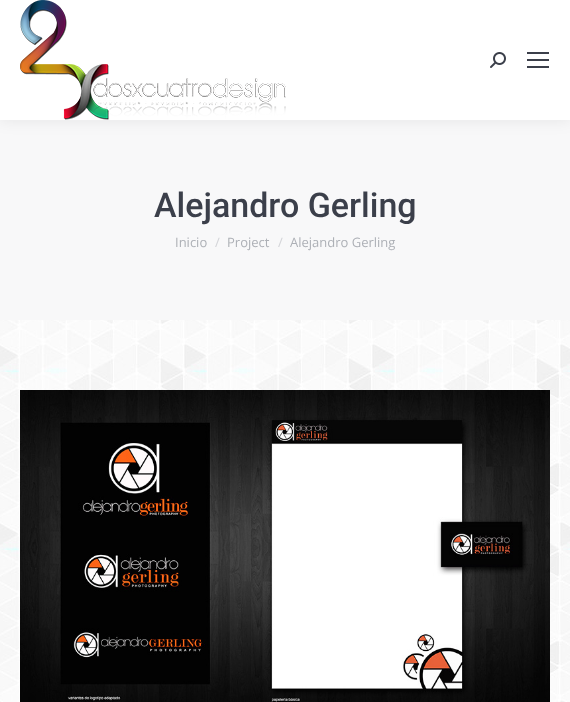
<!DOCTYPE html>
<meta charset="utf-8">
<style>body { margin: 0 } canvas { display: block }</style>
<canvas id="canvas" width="570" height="702"></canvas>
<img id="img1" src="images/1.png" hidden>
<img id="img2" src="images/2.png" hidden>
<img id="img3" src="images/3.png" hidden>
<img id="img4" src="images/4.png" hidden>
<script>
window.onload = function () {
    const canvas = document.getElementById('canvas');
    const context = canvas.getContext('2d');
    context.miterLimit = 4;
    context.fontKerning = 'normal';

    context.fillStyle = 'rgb(255, 255, 255)';
    context.fillRect(0, 0, 570, 702);
    context.drawImage(document.getElementById('img1'), 0, 320, 570, 382);
    context.fillStyle = 'rgb(248, 248, 249)';
    context.fillRect(0, 120, 570, 200);
    context.fillStyle = 'rgba(0, 0, 0, 0.07)';
    context.filter = 'blur(7.5px)';
    context.beginPath();
    context.rect(-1, -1, 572, 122);
    context.fill();
    context.filter = 'none';
    context.fillStyle = 'rgb(255, 255, 255)';
    context.fillRect(0, 0, 570, 120);
    context.drawImage(document.getElementById('img2'), 20, 0, 266, 120);
    context.drawImage(document.getElementById('img3'), 490, 52, 16, 16);
    context.fillStyle = 'rgb(59, 63, 74)';
    context.fillRect(527, 52, 22, 2);
    context.fillRect(527, 59, 22, 2);
    context.fillRect(527, 66, 22, 2);
    context.drawImage(document.getElementById('img4'), 20, 390, 530, 312);
    context.font = '500 34px Roboto';
    context.fillText('Alejandro Gerling', 154, 217);
    context.font = '13px Open Sans';
    context.fillStyle = 'rgb(173, 176, 182)';
    context.fillText('Inicio', 175, 247);
    context.fillStyle = 'rgb(211, 212, 216)';
    context.fillText('/', 215, 247);
    context.fillStyle = 'rgb(173, 176, 182)';
    context.fillText('Project', 227, 247);
    context.fillStyle = 'rgb(211, 212, 216)';
    context.fillText('/', 278, 247);
    context.fillStyle = 'rgb(173, 176, 182)';
    context.fillText('Alejandro Gerling', 290, 247);
};
</script>
